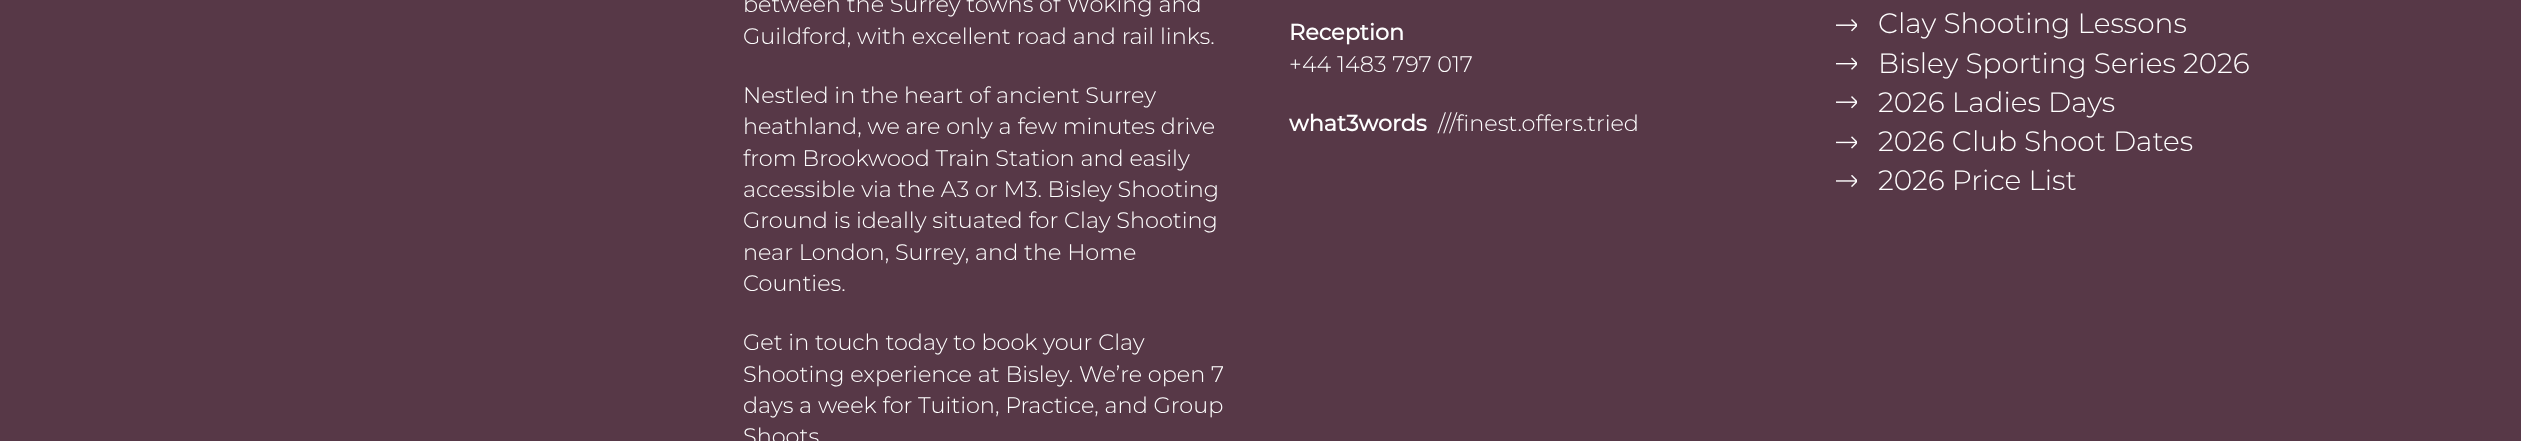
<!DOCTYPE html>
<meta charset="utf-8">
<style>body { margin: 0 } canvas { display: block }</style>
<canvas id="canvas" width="2521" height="441"></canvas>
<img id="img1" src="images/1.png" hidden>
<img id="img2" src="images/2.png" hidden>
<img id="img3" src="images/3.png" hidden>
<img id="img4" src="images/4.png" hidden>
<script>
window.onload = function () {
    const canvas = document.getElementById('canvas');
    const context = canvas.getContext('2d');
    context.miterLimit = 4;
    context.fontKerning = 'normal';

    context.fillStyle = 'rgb(87, 56, 71)';
    context.fillRect(0, 0, 2521, 441);
    context.drawImage(document.getElementById('img1'), 1836, 19, 21, 13);
    context.drawImage(document.getElementById('img2'), 1836, 57, 21, 13);
    context.drawImage(document.getElementById('img1'), 1836, 96, 21, 13);
    context.drawImage(document.getElementById('img3'), 1836, 136, 21, 13);
    context.drawImage(document.getElementById('img4'), 1836, 175, 21, 12);
    context.font = '300 22.4px Montserrat';
    context.fillStyle = 'rgb(255, 255, 255)';
    context.fillText('between the Surrey towns of Woking and', 743, 12);
    context.fillText('Guildford, with excellent road and rail links.', 743, 44);
    context.fillText('Nestled in the heart of ancient Surrey', 743, 103);
    context.fillText('heathland, we are only a few minutes drive', 743, 134);
    context.fillText('from Brookwood Train Station and easily', 743, 166);
    context.fillText('accessible via the A3 or M3. Bisley Shooting', 743, 197);
    context.fillText('Ground is ideally situated for Clay Shooting', 743, 228);
    context.fillText('near London, Surrey, and the Home', 743, 260);
    context.fillText('Counties.', 743, 291);
    context.fillText('Get in touch today to book your Clay', 743, 350);
    context.fillText('Shooting experience at Bisley. We’re open 7', 743, 382);
    context.fillText('days a week for Tuition, Practice, and Group', 743, 413);
    context.fillText('Shoots', 743, 444);
    context.font = 'bold 22.4px Montserrat';
    context.fillText('Reception', 1289, 40);
    context.font = '300 22.4px Montserrat';
    context.fillText('+44 1483 797 017', 1289, 72);
    context.font = 'bold 22.4px Montserrat';
    context.fillText('what3words', 1289, 131);
    context.font = '300 22.4px Montserrat';
    context.fillText('///finest.offers.tried', 1438, 131);
    context.font = '300 28px Montserrat';
    context.fillText('Clay Shooting Lessons', 1878, 33);
    context.fillText('Bisley Sporting Series 2026', 1878, 73);
    context.fillText('2026 Ladies Days', 1878, 112);
    context.fillText('2026 Club Shoot Dates', 1878, 151);
    context.fillText('2026 Price List', 1878, 190);
};
</script>
